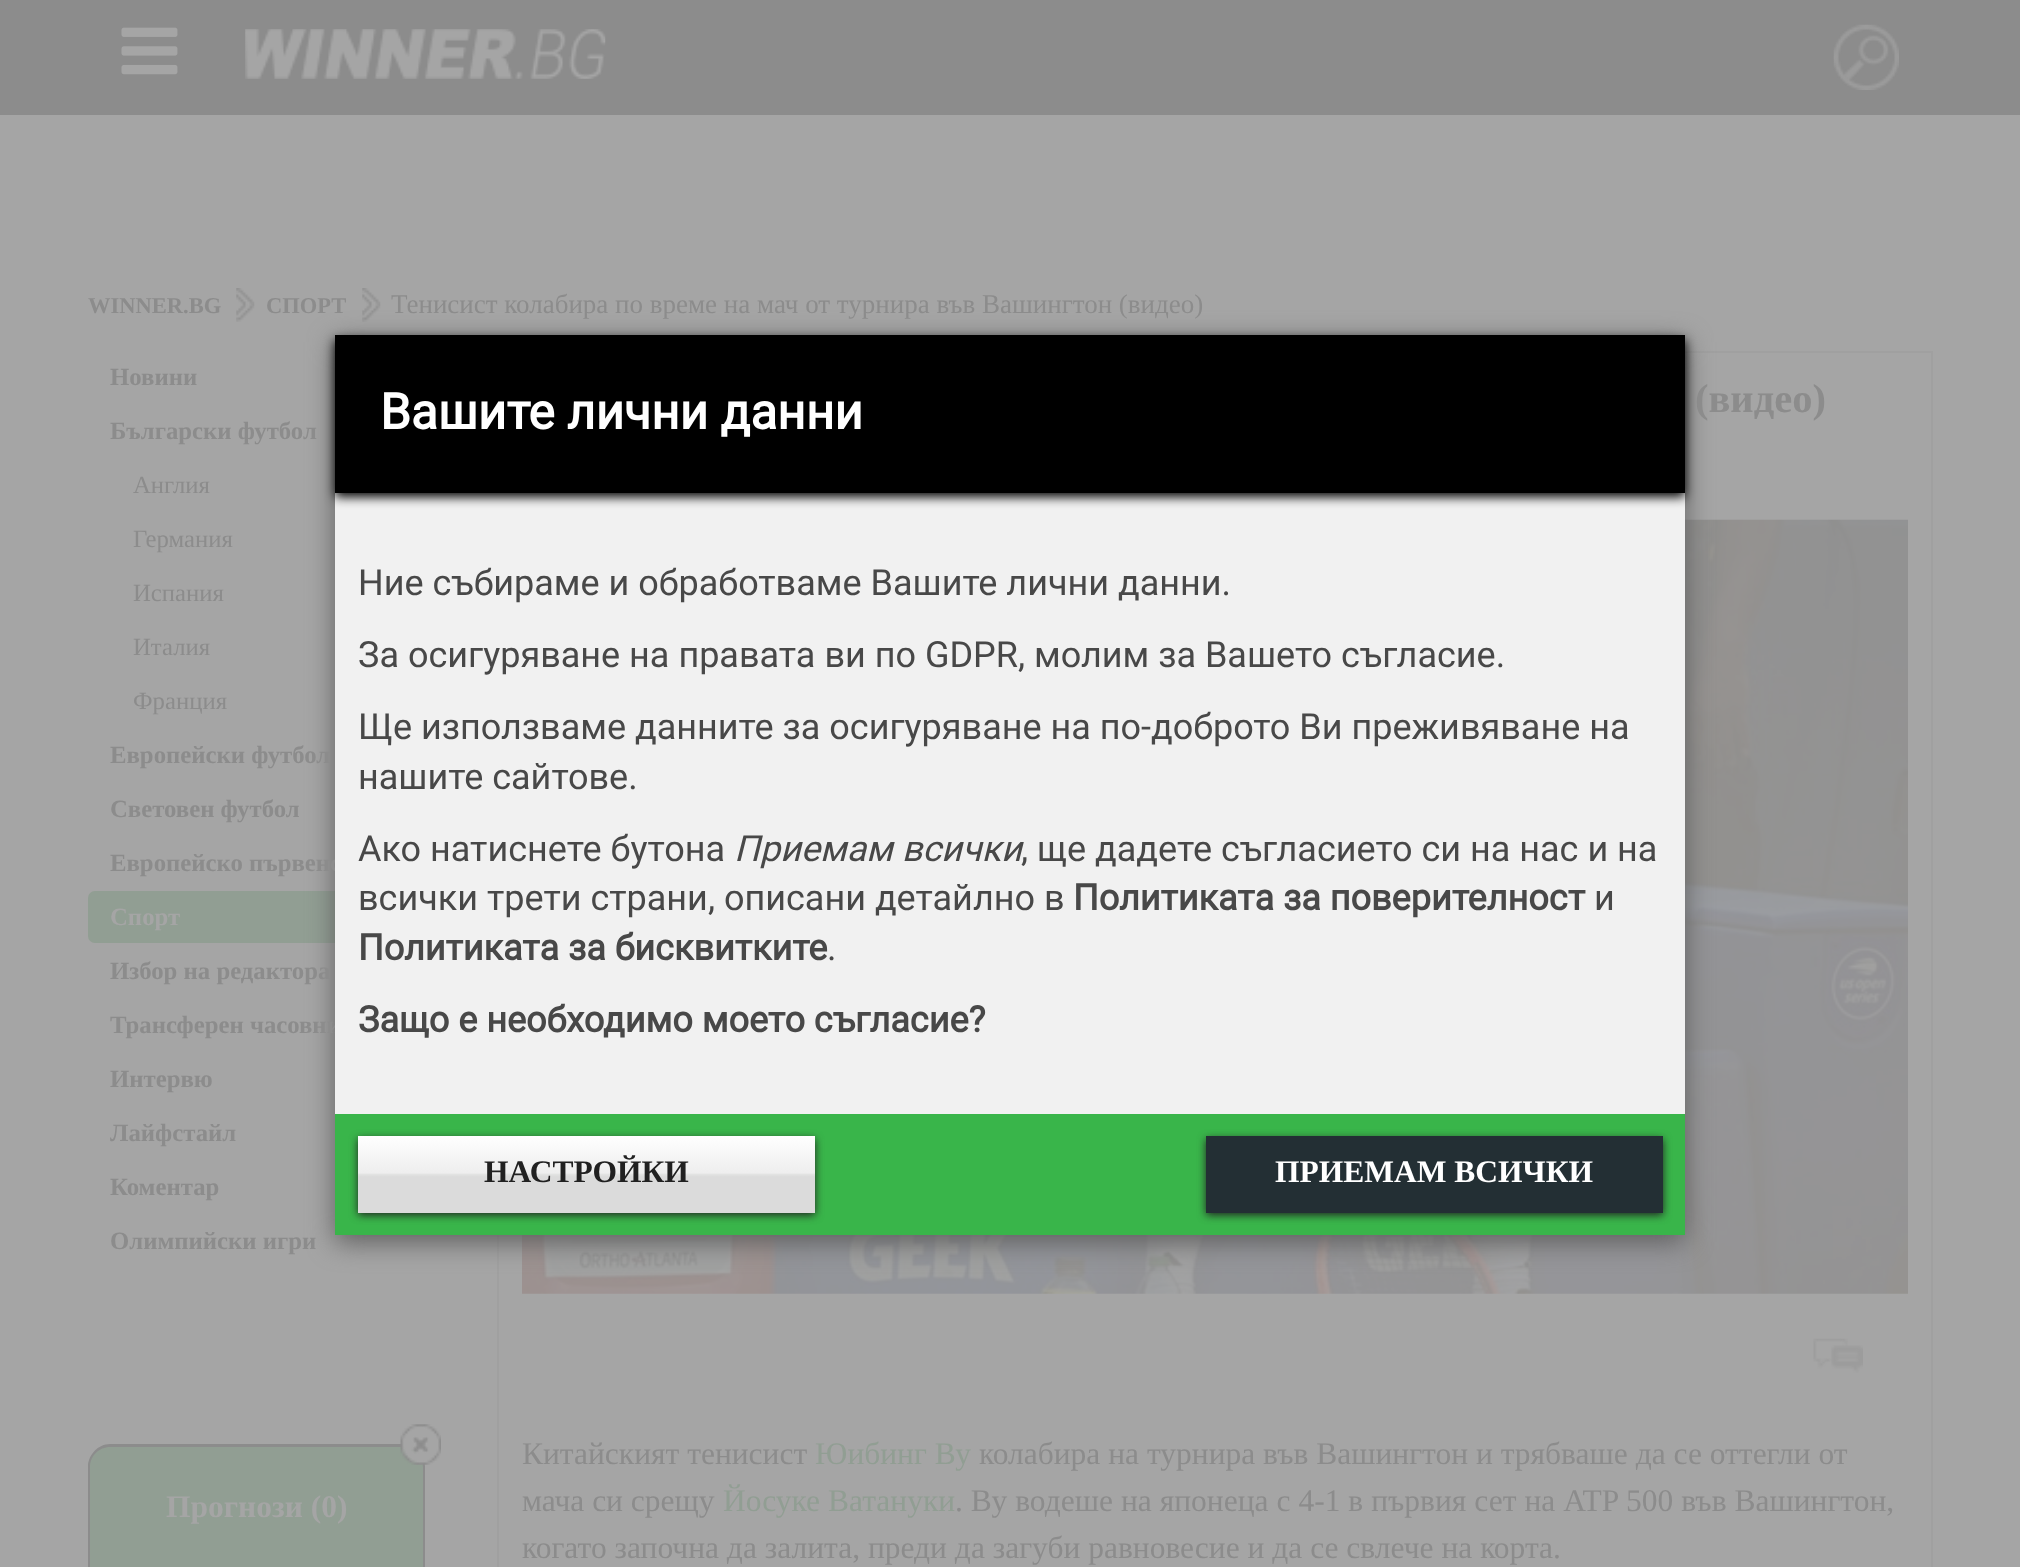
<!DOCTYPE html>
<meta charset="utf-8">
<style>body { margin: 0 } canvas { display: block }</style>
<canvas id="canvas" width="2020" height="1567"></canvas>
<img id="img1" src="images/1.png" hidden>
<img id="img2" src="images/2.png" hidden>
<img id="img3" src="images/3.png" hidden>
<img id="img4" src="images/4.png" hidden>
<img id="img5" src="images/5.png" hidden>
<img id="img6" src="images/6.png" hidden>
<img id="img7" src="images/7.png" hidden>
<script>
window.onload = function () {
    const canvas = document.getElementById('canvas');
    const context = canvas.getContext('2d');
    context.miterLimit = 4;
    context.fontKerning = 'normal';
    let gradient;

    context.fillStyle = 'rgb(165, 165, 165)';
    context.fillRect(0, 0, 2020, 1567);
    context.fillStyle = 'rgb(140, 140, 140)';
    context.fillRect(0, 0, 2020, 115);
    context.drawImage(document.getElementById('img1'), 121, 27, 57, 48);
    context.drawImage(document.getElementById('img2'), 245, 29, 361, 50);
    context.drawImage(document.getElementById('img3'), 1833, 24, 66, 66);
    context.drawImage(document.getElementById('img4'), 236, 288, 19, 34);
    context.drawImage(document.getElementById('img4'), 362, 288, 19, 34);
    context.fillStyle = 'rgb(145, 158, 147)';
    context.beginPath();
    context.roundRect(88, 891, 387, 52, 7);
    context.fill();
    context.strokeStyle = 'rgb(160, 160, 160)';
    context.lineWidth = 2;
    context.strokeRect(498, 352, 1434, 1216);
    context.drawImage(document.getElementById('img5'), 522, 519, 1386, 775);
    context.drawImage(document.getElementById('img6'), 1813, 1338, 50, 35);
    context.beginPath();
    context.moveTo(111, 1445);
    context.lineTo(402, 1445);
    context.bezierCurveTo(414.5, 1445, 425, 1455.5, 425, 1468);
    context.lineTo(425, 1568);
    context.lineTo(88, 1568);
    context.lineTo(88, 1468);
    context.bezierCurveTo(88, 1455.5, 98.5, 1445, 111, 1445);
    context.closePath();
    context.fill();
    context.fillStyle = 'rgb(140, 140, 140)';
    context.beginPath();
    context.moveTo(110, 1444);
    context.lineTo(403, 1444);
    context.bezierCurveTo(415, 1444, 425, 1455, 425, 1467);
    context.lineTo(425, 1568);
    context.lineTo(88, 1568);
    context.lineTo(88, 1467);
    context.bezierCurveTo(88, 1455, 98, 1444, 110, 1444);
    context.closePath();
    context.moveTo(110, 1447);
    context.lineTo(403, 1447);
    context.bezierCurveTo(414, 1447, 423, 1456, 423, 1467);
    context.lineTo(423, 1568);
    context.lineTo(90, 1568);
    context.lineTo(90, 1467);
    context.bezierCurveTo(90, 1456, 99, 1447, 110, 1447);
    context.closePath();
    context.fill('evenodd');
    context.drawImage(document.getElementById('img7'), 400, 1424, 41, 41);
    context.fillStyle = 'rgb(94, 94, 94)';
    context.filter = 'blur(13.5px)';
    context.beginPath();
    context.rect(335, 342, 1350, 900);
    context.fill();
    context.filter = 'none';
    context.fillStyle = 'rgb(57, 181, 74)';
    context.fillRect(335, 1114, 1350, 121);
    context.fillStyle = 'rgb(33, 33, 33)';
    context.filter = 'blur(4.5px)';
    context.beginPath();
    context.rect(358, 1139, 457, 76);
    context.fill();
    context.filter = 'none';
    gradient = context.createLinearGradient(586, 1136, 586, 1213);
    gradient.addColorStop(0, 'rgb(255, 255, 255)');
    gradient.addColorStop(0.48, 'rgb(238, 238, 238)');
    gradient.addColorStop(0.5, 'rgb(226, 227, 226)');
    gradient.addColorStop(0.53, 'rgb(219, 219, 219)');
    gradient.addColorStop(1, 'rgb(219, 219, 219)');
    context.fillStyle = gradient;
    context.fillRect(358, 1136, 457, 77);
    context.fillStyle = 'rgb(33, 33, 33)';
    context.filter = 'blur(4.5px)';
    context.beginPath();
    context.rect(1206, 1139, 457, 76);
    context.fill();
    context.filter = 'none';
    context.fillStyle = 'rgb(35, 47, 52)';
    context.fillRect(1206, 1136, 457, 77);
    context.font = 'bold 22.5px Liberation Serif';
    context.fillStyle = 'rgb(140, 140, 140)';
    context.fillText('WINNER.BG', 88, 313);
    context.fillText('СПОРТ', 266, 313);
    context.font = '27px Liberation Serif';
    context.fillText('Тенисист колабира по време на мач от турнира във Вашингтон (видео)', 391, 313);
    context.font = 'bold 24.75px Liberation Serif';
    context.fillText('Новини', 110, 385);
    context.fillText('Български футбол', 110, 439);
    context.font = '24.75px Liberation Serif';
    context.fillText('Англия', 133, 493);
    context.fillText('Германия', 133, 547);
    context.fillText('Испания', 133, 601);
    context.fillText('Италия', 133, 655);
    context.fillText('Франция', 133, 709);
    context.font = 'bold 24.75px Liberation Serif';
    context.fillText('Европейски футбол', 110, 763);
    context.fillText('Световен футбол', 110, 817);
    context.fillText('Европейско първенс', 110, 871);
    context.fillStyle = 'rgb(165, 165, 165)';
    context.fillText('Спорт', 110, 925);
    context.fillStyle = 'rgb(140, 140, 140)';
    context.fillText('Избор на редактора', 110, 979);
    context.fillText('Трансферен часовни', 110, 1033);
    context.fillText('Интервю', 110, 1087);
    context.fillText('Лайфстайл', 110, 1141);
    context.fillText('Коментар', 110, 1195);
    context.fillText('Олимпийски игри', 110, 1249);
    context.font = 'bold 40.5px Liberation Serif';
    context.fillText('(видео)', 1695, 412);
    context.font = '31.5px Liberation Serif';
    context.fillText('Китайският тенисист', 522, 1464);
    context.fillStyle = 'rgb(145, 158, 147)';
    context.fillText('Юибинг Ву', 815, 1464);
    context.fillStyle = 'rgb(140, 140, 140)';
    context.fillText('колабира на турнира във Вашингтон и трябваше да се оттегли от', 979, 1464);
    context.fillText('мача си срещу', 522, 1511);
    context.fillStyle = 'rgb(145, 158, 147)';
    context.fillText('Йосуке Ватануки', 723, 1511);
    context.wordSpacing = '0.1px';
    context.fillStyle = 'rgb(140, 140, 140)';
    context.fillText('. Ву водеше на японеца с 4-1 в първия сет на ATP 500 във Вашингтон,', 955, 1511);
    context.wordSpacing = '0px';
    context.fillText('когато започна да залита, преди да загуби равновесие и да се свлече на корта.', 522, 1558);
    context.font = 'bold 31.5px Liberation Serif';
    context.fillStyle = 'rgb(165, 165, 165)';
    context.fillText('Прогнози (0)', 166, 1517);
    context.fillStyle = 'rgb(241, 241, 241)';
    context.fillRect(335, 493, 1350, 621);
    context.fillStyle = 'rgb(0, 0, 0)';
    context.filter = 'blur(5.5px)';
    context.beginPath();
    context.rect(335, 340, 1350, 157);
    context.fill();
    context.filter = 'none';
    context.fillRect(335, 335, 1350, 158);
    context.font = 'bold 49.5px Roboto';
    context.fillStyle = 'rgb(255, 255, 255)';
    context.fillText('Вашите лични данни', 380, 429);
    context.font = '36px Roboto';
    context.fillStyle = 'rgb(72, 72, 72)';
    context.fillText('Ние събираме и обработваме Вашите лични данни.', 358, 595);
    context.fillText('За осигуряване на правата ви по GDPR, молим за Вашето съгласие.', 358, 667);
    context.fillText('Ще използваме данните за осигуряване на по-доброто Ви преживяване на', 358, 739);
    context.fillText('нашите сайтове.', 358, 789);
    context.fillText('Ако натиснете бутона', 358, 861);
    context.font = 'italic 36px Roboto';
    context.fillText('Приемам всички', 734, 861);
    context.font = '36px Roboto';
    context.fillText(', ще дадете съгласието си на нас и на', 1021, 861);
    context.fillText('всички трети страни, описани детайлно в', 358, 910);
    context.font = 'bold 36px Roboto';
    context.fillText('Политиката за поверителност', 1073, 910);
    context.font = '36px Roboto';
    context.fillText('и', 1594, 910);
    context.font = 'bold 36px Roboto';
    context.fillText('Политиката за бисквитките', 358, 960);
    context.font = '36px Roboto';
    context.fillText('.', 827, 960);
    context.font = 'bold 36px Roboto';
    context.fillText('Защо е необходимо моето съгласие?', 358, 1032);
    context.font = 'bold 31.5px Liberation Serif';
    context.fillStyle = 'rgb(33, 33, 33)';
    context.fillText('НАСТРОЙКИ', 484, 1182);
    context.fillStyle = 'rgb(255, 255, 255)';
    context.fillText('ПРИЕМАМ ВСИЧКИ', 1275, 1182);
};
</script>
